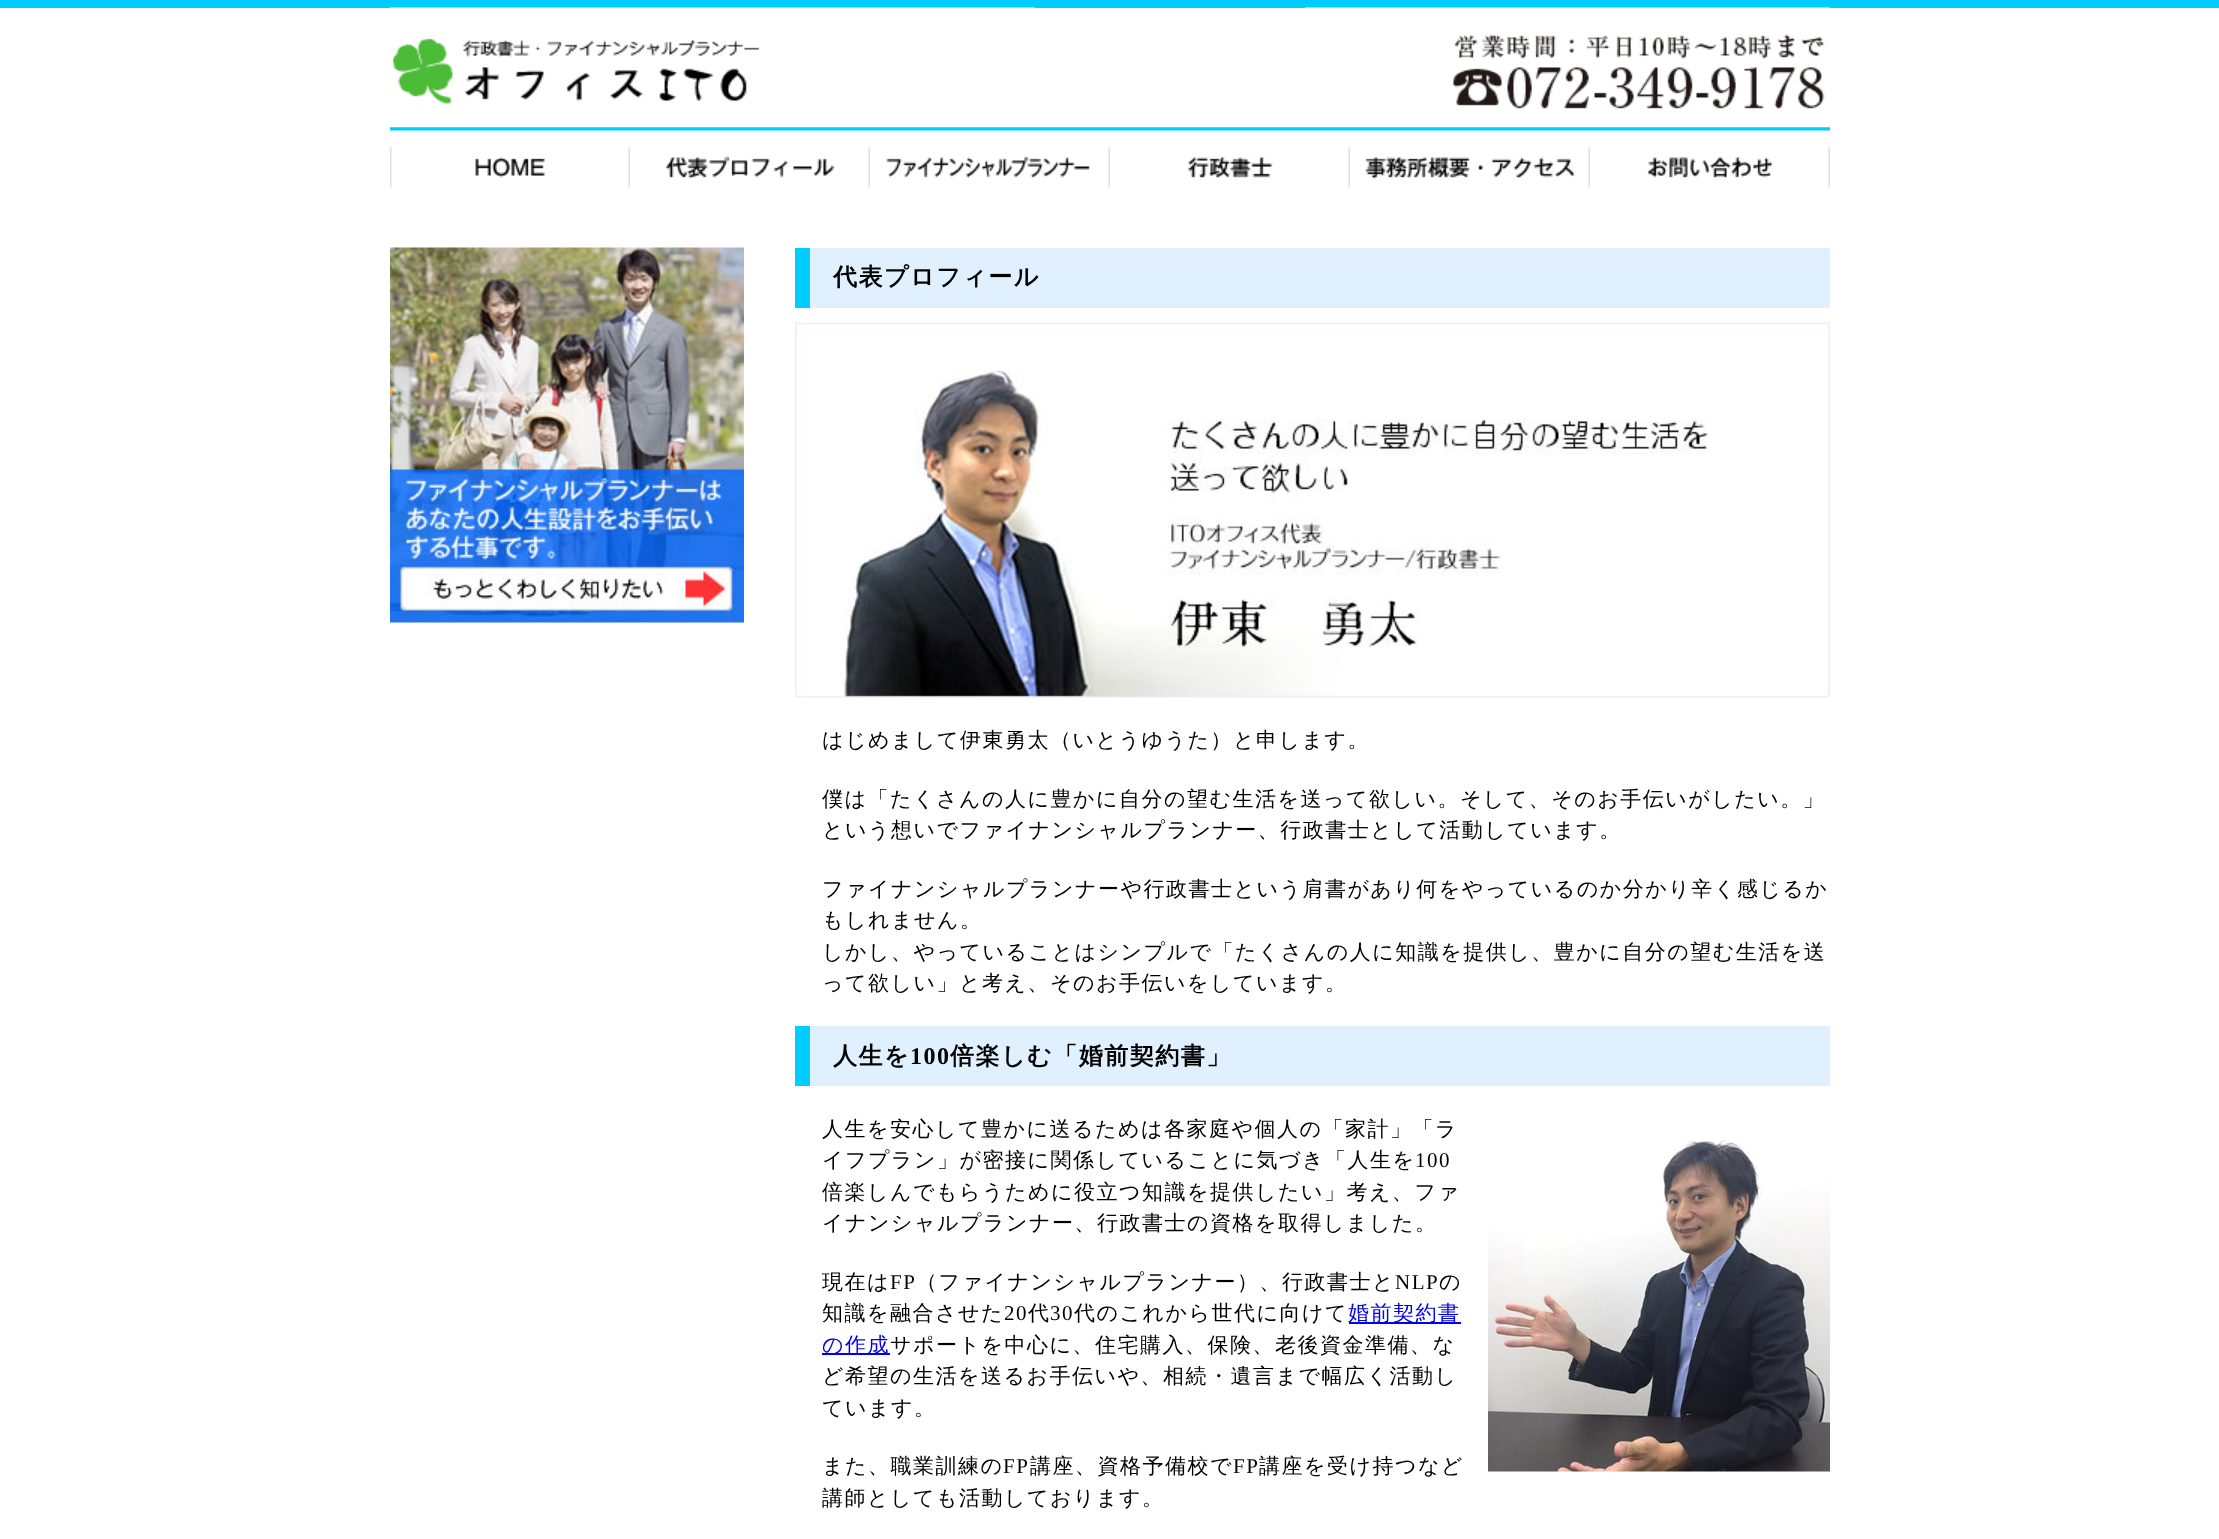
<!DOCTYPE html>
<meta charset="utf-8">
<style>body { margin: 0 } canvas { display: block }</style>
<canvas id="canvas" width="2219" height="1539"></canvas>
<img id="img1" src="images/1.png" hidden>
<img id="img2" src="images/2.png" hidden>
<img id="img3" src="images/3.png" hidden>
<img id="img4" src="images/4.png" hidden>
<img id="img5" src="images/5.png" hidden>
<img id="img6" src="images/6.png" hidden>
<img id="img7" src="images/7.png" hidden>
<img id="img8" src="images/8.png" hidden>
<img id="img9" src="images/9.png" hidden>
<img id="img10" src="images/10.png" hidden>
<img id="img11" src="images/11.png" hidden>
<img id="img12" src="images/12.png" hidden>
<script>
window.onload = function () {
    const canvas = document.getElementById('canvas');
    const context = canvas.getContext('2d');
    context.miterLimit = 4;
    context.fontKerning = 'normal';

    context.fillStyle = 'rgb(255, 255, 255)';
    context.fillRect(0, 0, 2219, 1539);
    context.fillStyle = 'rgb(0, 204, 255)';
    context.fillRect(0, 0, 2219, 8);
    context.drawImage(document.getElementById('img1'), 390, 7, 645, 97);
    context.drawImage(document.getElementById('img2'), 1305, 7, 525, 102);
    context.drawImage(document.getElementById('img3'), 390, 128, 240, 60);
    context.fillStyle = 'rgb(63, 216, 255)';
    context.fillRect(390, 127, 240, 1);
    context.drawImage(document.getElementById('img4'), 630, 127, 240, 1);
    context.drawImage(document.getElementById('img5'), 630, 127, 240, 61);
    context.drawImage(document.getElementById('img4'), 870, 127, 240, 1);
    context.drawImage(document.getElementById('img6'), 870, 127, 240, 61);
    context.drawImage(document.getElementById('img4'), 1110, 127, 240, 1);
    context.drawImage(document.getElementById('img7'), 1110, 127, 240, 61);
    context.drawImage(document.getElementById('img4'), 1350, 127, 240, 1);
    context.drawImage(document.getElementById('img8'), 1350, 127, 240, 61);
    context.drawImage(document.getElementById('img4'), 1590, 127, 240, 1);
    context.drawImage(document.getElementById('img9'), 1590, 127, 240, 61);
    context.drawImage(document.getElementById('img10'), 390, 247, 354, 376);
    context.fillStyle = 'rgb(225, 240, 255)';
    context.fillRect(810, 248, 1020, 60);
    context.fillStyle = 'rgb(0, 204, 255)';
    context.fillRect(795, 248, 15, 60);
    context.drawImage(document.getElementById('img11'), 795, 322, 1035, 376);
    context.fillStyle = 'rgb(225, 240, 255)';
    context.fillRect(810, 1026, 1020, 60);
    context.fillStyle = 'rgb(0, 204, 255)';
    context.fillRect(795, 1026, 15, 60);
    context.drawImage(document.getElementById('img12'), 1488, 1140, 342, 332);
    context.fillStyle = 'rgb(0, 0, 238)';
    context.fillRect(1349, 1322, 112, 2);
    context.fillRect(822, 1353, 68, 2);
    context.letterSpacing = '1.5px';
    context.font = 'bold 24px WenQuanYi Zen Hei';
    context.fillStyle = 'rgb(0, 0, 0)';
    context.fillText('代表プロフィール', 833, 285);
    context.font = '500 21px WenQuanYi Zen Hei';
    context.fillText('はじめまして伊東勇太（いとうゆうた）と申します。', 822, 747);
    context.fillText('僕は「たくさんの人に豊かに自分の望む生活を送って欲しい。そして、そのお手伝いがしたい。」', 822, 806);
    context.fillText('という想いでファイナンシャルプランナー、行政書士として活動しています。', 822, 837);
    context.fillText('ファイナンシャルプランナーや行政書士という肩書があり何をやっているのか分かり辛く感じるか', 822, 896);
    context.fillText('もしれません。', 822, 927);
    context.fillText('しかし、やっていることはシンプルで「たくさんの人に知識を提供し、豊かに自分の望む生活を送', 822, 959);
    context.fillText('って欲しい」と考え、そのお手伝いをしています。', 822, 990);
    context.font = 'bold 24px WenQuanYi Zen Hei';
    context.fillText('人生を', 833, 1064);
    context.font = 'bold 24px Liberation Serif';
    context.fillText('100', 910, 1064);
    context.font = 'bold 24px WenQuanYi Zen Hei';
    context.fillText('倍楽しむ「婚前契約書」', 950, 1064);
    context.font = '500 21px WenQuanYi Zen Hei';
    context.fillText('人生を安心して豊かに送るためは各家庭や個人の「家計」「ラ', 822, 1136);
    context.fillText('イフプラン」が密接に関係していることに気づき「人生を', 822, 1167);
    context.font = '21px Liberation Serif';
    context.fillText('100', 1415, 1167);
    context.font = '500 21px WenQuanYi Zen Hei';
    context.fillText('倍楽しんでもらうために役立つ知識を提供したい」考え、ファ', 822, 1199);
    context.fillText('イナンシャルプランナー、行政書士の資格を取得しました。', 822, 1230);
    context.fillText('現在は', 822, 1289);
    context.font = '21px Liberation Serif';
    context.fillText('FP', 890, 1289);
    context.font = '500 21px WenQuanYi Zen Hei';
    context.fillText('（ファイナンシャルプランナー）、行政書士と', 916, 1289);
    context.font = '21px Liberation Serif';
    context.fillText('NLP', 1395, 1289);
    context.font = '500 21px WenQuanYi Zen Hei';
    context.fillText('の', 1439, 1289);
    context.fillText('知識を融合させた', 822, 1320);
    context.font = '21px Liberation Serif';
    context.fillText('20', 1004, 1320);
    context.font = '500 21px WenQuanYi Zen Hei';
    context.fillText('代', 1028, 1320);
    context.font = '21px Liberation Serif';
    context.fillText('30', 1050, 1320);
    context.font = '500 21px WenQuanYi Zen Hei';
    context.fillText('代のこれから世代に向けて', 1074, 1320);
    context.fillStyle = 'rgb(0, 0, 238)';
    context.fillText('婚前契約書', 1348, 1320);
    context.fillText('の作成', 822, 1352);
    context.fillStyle = 'rgb(0, 0, 0)';
    context.fillText('サポートを中心に、住宅購入、保険、老後資金準備、な', 890, 1352);
    context.fillText('ど希望の生活を送るお手伝いや、相続・遺言まで幅広く活動し', 822, 1383);
    context.fillText('ています。', 822, 1415);
    context.fillText('また、職業訓練の', 822, 1473);
    context.font = '21px Liberation Serif';
    context.fillText('FP', 1003, 1473);
    context.font = '500 21px WenQuanYi Zen Hei';
    context.fillText('講座、資格予備校で', 1030, 1473);
    context.font = '21px Liberation Serif';
    context.fillText('FP', 1233, 1473);
    context.font = '500 21px WenQuanYi Zen Hei';
    context.fillText('講座を受け持つなど', 1259, 1473);
    context.fillText('講師としても活動しております。', 822, 1505);
};
</script>
